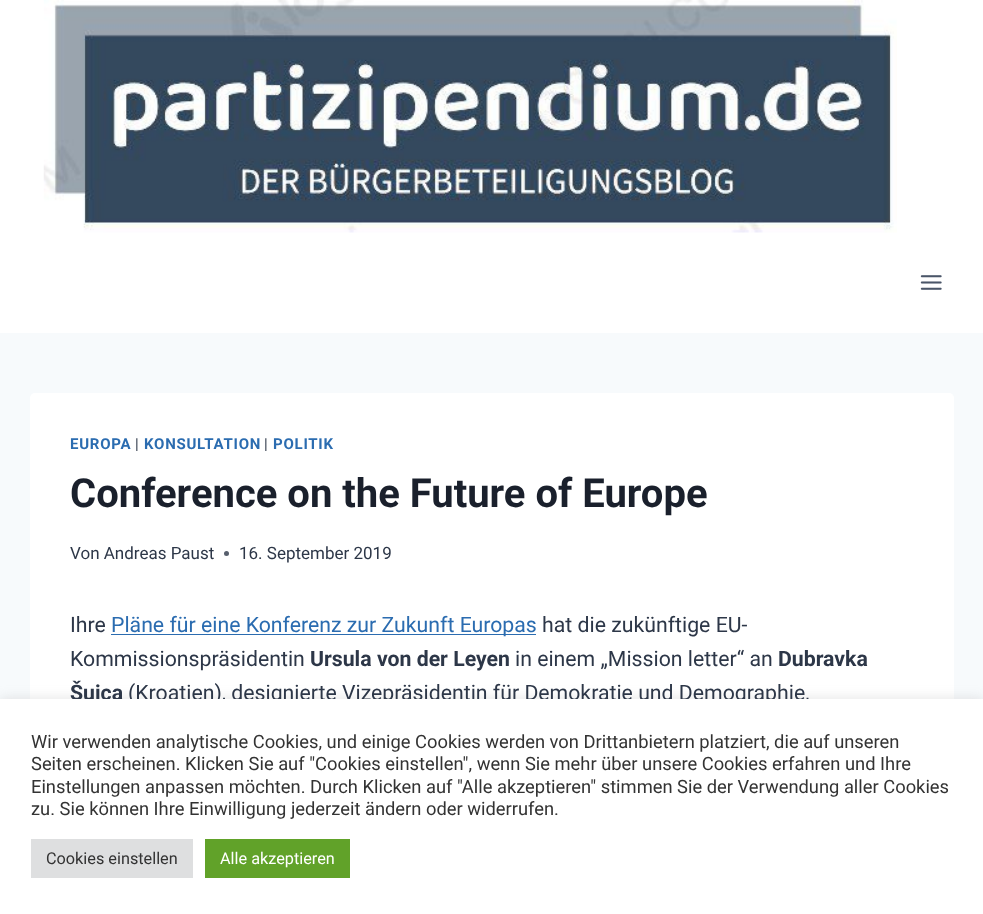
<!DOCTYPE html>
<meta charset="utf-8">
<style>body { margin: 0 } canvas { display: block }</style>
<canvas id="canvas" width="983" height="914"></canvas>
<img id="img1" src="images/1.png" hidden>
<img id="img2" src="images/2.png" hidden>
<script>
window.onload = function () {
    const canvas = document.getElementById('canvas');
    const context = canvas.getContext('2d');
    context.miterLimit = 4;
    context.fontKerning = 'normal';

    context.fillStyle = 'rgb(247, 250, 252)';
    context.fillRect(0, 0, 983, 914);
    context.fillStyle = 'rgb(255, 255, 255)';
    context.fillRect(0, 0, 983, 333);
    context.drawImage(document.getElementById('img1'), 43, 0, 854, 233);
    context.drawImage(document.getElementById('img2'), 920, 275, 22, 15);
    context.beginPath();
    context.roundRect(30, 393, 924, 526, 5);
    context.fill();
    context.fillStyle = 'rgb(87, 95, 109)';
    context.beginPath();
    context.arc(226.5, 553.5, 2.5, 0, 2 * Math.PI);
    context.fill();
    context.fillStyle = 'rgb(43, 108, 176)';
    context.fillRect(111, 634, 425, 1);
    context.fillStyle = 'rgba(172, 171, 171, 0.3)';
    context.filter = 'blur(6px)';
    context.beginPath();
    context.rect(0, 698, 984, 216);
    context.fill();
    context.filter = 'none';
    context.letterSpacing = '0.75px';
    context.font = 'bold 15px Roboto';
    context.fillStyle = 'rgb(43, 108, 176)';
    context.fillText('EUROPA', 70, 449);
    context.font = '15px Roboto';
    context.fillStyle = 'rgb(45, 55, 72)';
    context.fillText('|', 135, 449);
    context.font = 'bold 15px Roboto';
    context.fillStyle = 'rgb(43, 108, 176)';
    context.fillText('KONSULTATION', 144, 449);
    context.font = '15px Roboto';
    context.fillStyle = 'rgb(45, 55, 72)';
    context.fillText('|', 264, 449);
    context.font = 'bold 15px Roboto';
    context.fillStyle = 'rgb(43, 108, 176)';
    context.fillText('POLITIK', 273, 449);
    context.letterSpacing = '0px';
    context.font = 'bold 40px Roboto';
    context.fillStyle = 'rgb(26, 32, 44)';
    context.fillText('Conference on the Future of Europe', 70, 507);
    context.font = '17px Roboto';
    context.fillStyle = 'rgb(45, 55, 72)';
    context.fillText('Von Andreas Paust', 70, 559);
    context.fillText('16. September 2019', 239, 559);
    context.font = '21.25px Roboto';
    context.fillText('Ihre', 70, 632);
    context.fillStyle = 'rgb(43, 108, 176)';
    context.fillText('Pläne für eine Konferenz zur Zukunft Europas', 111, 632);
    context.fillStyle = 'rgb(45, 55, 72)';
    context.fillText('hat die zukünftige EU-', 542, 632);
    context.fillText('Kommissionspräsidentin', 70, 666);
    context.font = 'bold 21.25px Roboto';
    context.fillText('Ursula von der Leyen', 310, 666);
    context.font = '21.25px Roboto';
    context.fillText('in einem „Mission letter“ an', 515, 666);
    context.font = 'bold 21.25px Roboto';
    context.fillText('Dubravka', 778, 666);
    context.fillText('Šuica', 70, 700);
    context.font = '21.25px Roboto';
    context.fillText('(Kroatien), designierte Vizepräsidentin für Demokratie und Demographie,', 128, 700);
    context.fillStyle = 'rgb(255, 255, 255)';
    context.fillRect(0, 699, 983, 215);
    context.font = '18.33px Roboto';
    context.fillStyle = 'rgb(51, 51, 51)';
    context.fillText('Wir verwenden analytische Cookies, und einige Cookies werden von Drittanbietern platziert, die auf unseren', 31, 748);
    context.fillText('Seiten erscheinen. Klicken Sie auf "Cookies einstellen", wenn Sie mehr über unsere Cookies erfahren und Ihre', 31, 770);
    context.fillText('Einstellungen anpassen möchten. Durch Klicken auf "Alle akzeptieren" stimmen Sie der Verwendung aller Cookies', 31, 793);
    context.fillText('zu. Sie können Ihre Einwilligung jederzeit ändern oder widerrufen.', 31, 815);
    context.fillStyle = 'rgb(222, 223, 224)';
    context.fillRect(31, 839, 162, 39);
    context.font = '16.25px Roboto';
    context.fillStyle = 'rgb(51, 51, 51)';
    context.fillText('Cookies einstellen', 46, 864);
    context.fillStyle = 'rgb(97, 162, 41)';
    context.fillRect(205, 839, 145, 39);
    context.fillStyle = 'rgb(255, 255, 255)';
    context.fillText('Alle akzeptieren', 220, 864);
};
</script>
